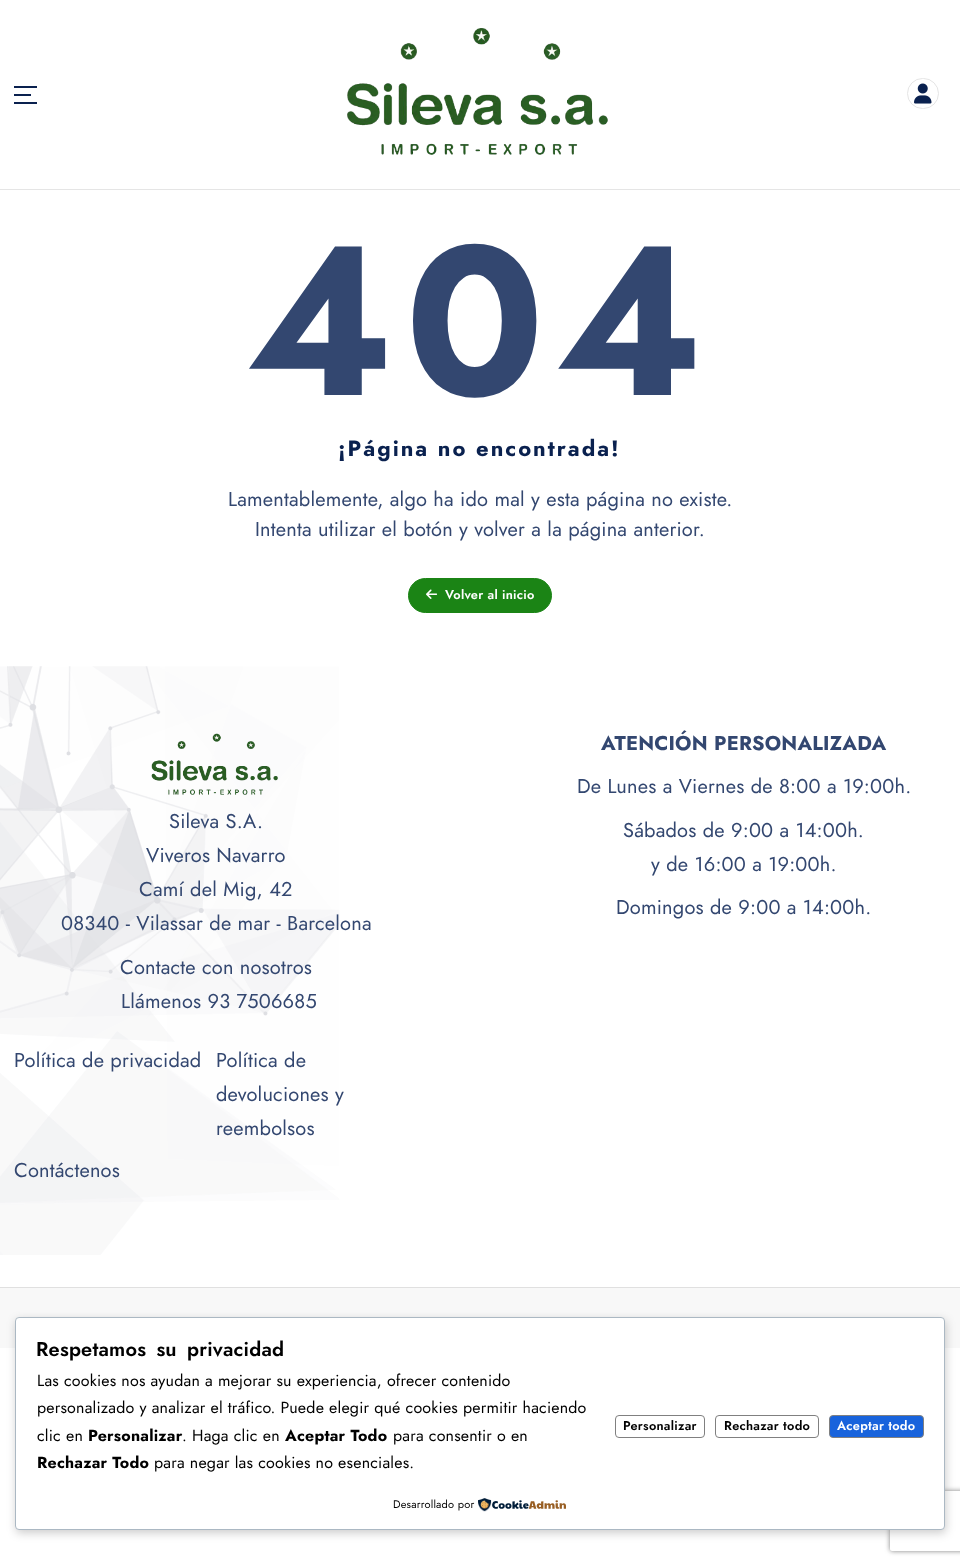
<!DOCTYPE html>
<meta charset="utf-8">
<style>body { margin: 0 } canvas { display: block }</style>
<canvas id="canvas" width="960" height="1565"></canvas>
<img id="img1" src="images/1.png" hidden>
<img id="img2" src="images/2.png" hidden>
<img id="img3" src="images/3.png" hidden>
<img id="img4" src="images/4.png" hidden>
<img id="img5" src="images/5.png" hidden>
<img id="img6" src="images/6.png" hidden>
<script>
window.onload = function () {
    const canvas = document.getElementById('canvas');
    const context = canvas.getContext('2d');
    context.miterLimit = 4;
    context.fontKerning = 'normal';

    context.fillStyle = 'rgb(255, 255, 255)';
    context.fillRect(0, 0, 960, 1565);
    context.fillStyle = 'rgb(229, 229, 229)';
    context.fillRect(0, 189, 960, 1);
    context.fillStyle = 'rgb(10, 33, 79)';
    context.fillRect(14, 86, 23, 2);
    context.fillRect(14, 94, 17, 2);
    context.fillRect(14, 102, 23, 2);
    context.drawImage(document.getElementById('img1'), 347, 28, 261, 127);
    context.drawImage(document.getElementById('img2'), 914, 83, 18, 21);
    context.beginPath();
    context.roundRect(907.5, 78.5, 31, 30, 15);
    context.strokeStyle = 'rgb(229, 229, 229)';
    context.stroke();
    context.fillStyle = 'rgb(27, 132, 21)';
    context.beginPath();
    context.roundRect(408.5, 578.5, 143, 34, 17);
    context.fill();
    context.strokeStyle = 'rgb(27, 132, 21)';
    context.stroke();
    context.drawImage(document.getElementById('img3'), 426, 589, 12, 10);
    context.drawImage(document.getElementById('img4'), 0, 666, 340, 589);
    context.drawImage(document.getElementById('img5'), 151, 733, 127, 62);
    context.fillStyle = 'rgb(248, 248, 248)';
    context.fillRect(0, 1288, 960, 60);
    context.fillStyle = 'rgb(224, 224, 224)';
    context.fillRect(0, 1287, 960, 1);
    context.fillStyle = 'rgba(0, 0, 0, 0.2)';
    context.filter = 'blur(5px)';
    context.beginPath();
    context.roundRect(16, 1320, 930, 213, 4);
    context.fill();
    context.filter = 'none';
    context.save();
    context.beginPath();
    context.moveTo(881, 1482);
    context.lineTo(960, 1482);
    context.lineTo(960, 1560);
    context.lineTo(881, 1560);
    context.closePath();
    context.moveTo(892, 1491);
    context.lineTo(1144, 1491);
    context.bezierCurveTo(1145, 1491, 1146, 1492, 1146, 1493);
    context.lineTo(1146, 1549);
    context.bezierCurveTo(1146, 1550, 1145, 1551, 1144, 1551);
    context.lineTo(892, 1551);
    context.bezierCurveTo(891, 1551, 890, 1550, 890, 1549);
    context.lineTo(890, 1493);
    context.bezierCurveTo(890, 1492, 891, 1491, 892, 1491);
    context.closePath();
    context.clip('evenodd');
    context.fillStyle = 'rgb(128, 128, 128)';
    context.filter = 'blur(2.5px)';
    context.beginPath();
    context.roundRect(890, 1491, 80, 60, 2);
    context.fill();
    context.filter = 'none';
    context.restore();
    context.fillStyle = 'rgb(255, 255, 255)';
    context.beginPath();
    context.roundRect(15.5, 1317.5, 929, 212, 3.5);
    context.fill();
    context.strokeStyle = 'rgb(171, 184, 195)';
    context.stroke();
    context.beginPath();
    context.roundRect(615.5, 1415.5, 89, 22, 3.5);
    context.strokeStyle = 'rgb(128, 128, 128)';
    context.stroke();
    context.beginPath();
    context.roundRect(715.5, 1415.5, 103, 22, 3.5);
    context.stroke();
    context.fillStyle = 'rgb(24, 99, 220)';
    context.beginPath();
    context.roundRect(829.5, 1415.5, 94, 22, 3.5);
    context.fill();
    context.stroke();
    context.drawImage(document.getElementById('img6'), 478, 1498, 88, 14);
    context.letterSpacing = '10.5px';
    context.font = 'bold 212px Jost';
    context.fillStyle = 'rgb(51, 71, 112)';
    context.fillText('404', 246, 395);
    context.letterSpacing = '2px';
    context.font = 'bold 22px Jost';
    context.fillStyle = 'rgb(10, 33, 79)';
    context.fillText('¡Página no encontrada!', 338, 456);
    context.letterSpacing = '0.2px';
    context.font = '20px Jost';
    context.fillStyle = 'rgb(51, 71, 112)';
    context.fillText('Lamentablemente, algo ha ido mal y esta página no existe.', 228, 506);
    context.fillText('Intenta utilizar el botón y volver a la página anterior.', 255, 536);
    context.letterSpacing = '0.25px';
    context.font = '600 12.75px Jost';
    context.fillStyle = 'rgb(255, 255, 255)';
    context.fillText('Volver al inicio', 445, 599);
    context.letterSpacing = '0.2px';
    context.font = '20px Jost';
    context.fillStyle = 'rgb(51, 71, 112)';
    context.fillText('Sileva S.A.', 169, 828);
    context.fillText('Viveros Navarro', 146, 862);
    context.fillText('Camí del Mig, 42', 139, 896);
    context.fillText('08340 - Vilassar de mar - Barcelona', 61, 930);
    context.fillText('Contacte con nosotros', 120, 974);
    context.fillText('Llámenos 93 7506685', 121, 1008);
    context.font = 'bold 20px Jost';
    context.fillText('ATENCIÓN PERSONALIZADA', 601, 750);
    context.font = '20px Jost';
    context.fillText('De Lunes a Viernes de 8:00 a 19:00h.', 577, 793);
    context.fillText('Sábados de 9:00 a 14:00h.', 623, 837);
    context.fillText('y de 16:00 a 19:00h.', 651, 871);
    context.fillText('Domingos de 9:00 a 14:00h.', 616, 914);
    context.fillText('Política de privacidad', 14, 1067);
    context.fillText('Política de', 216, 1067);
    context.fillText('devoluciones y', 216, 1101);
    context.fillText('reembolsos', 216, 1135);
    context.fillText('Contáctenos', 14, 1177);
    context.wordSpacing = '4px';
    context.font = '600 20px Jost';
    context.fillStyle = 'rgb(0, 0, 0)';
    context.fillText('Respetamos su privacidad', 36, 1356);
    context.wordSpacing = '0px';
    context.font = '16px Jost';
    context.fillText('Las cookies nos ayudan a mejorar su experiencia, ofrecer contenido', 37, 1386);
    context.fillText('personalizado y analizar el tráfico. Puede elegir qué cookies permitir haciendo', 37, 1413);
    context.fillText('clic en', 37, 1441);
    context.font = 'bold 16px Jost';
    context.fillText('Personalizar', 88, 1441);
    context.font = '16px Jost';
    context.fillText('. Haga clic en', 182, 1441);
    context.font = 'bold 16px Jost';
    context.fillText('Aceptar Todo', 285, 1441);
    context.font = '16px Jost';
    context.fillText('para consentir o en', 393, 1441);
    context.font = 'bold 16px Jost';
    context.fillText('Rechazar Todo', 37, 1468);
    context.font = '16px Jost';
    context.fillText('para negar las cookies no esenciales.', 154, 1468);
    context.letterSpacing = '0.25px';
    context.font = '600 12.75px Jost';
    context.fillText('Personalizar', 623, 1430);
    context.fillText('Rechazar todo', 724, 1430);
    context.fillStyle = 'rgb(255, 255, 255)';
    context.fillText('Aceptar todo', 837, 1430);
    context.letterSpacing = '0.2px';
    context.font = '11px Jost';
    context.fillStyle = 'rgb(0, 0, 0)';
    context.fillText('Desarrollado por', 393, 1508);
};
</script>
